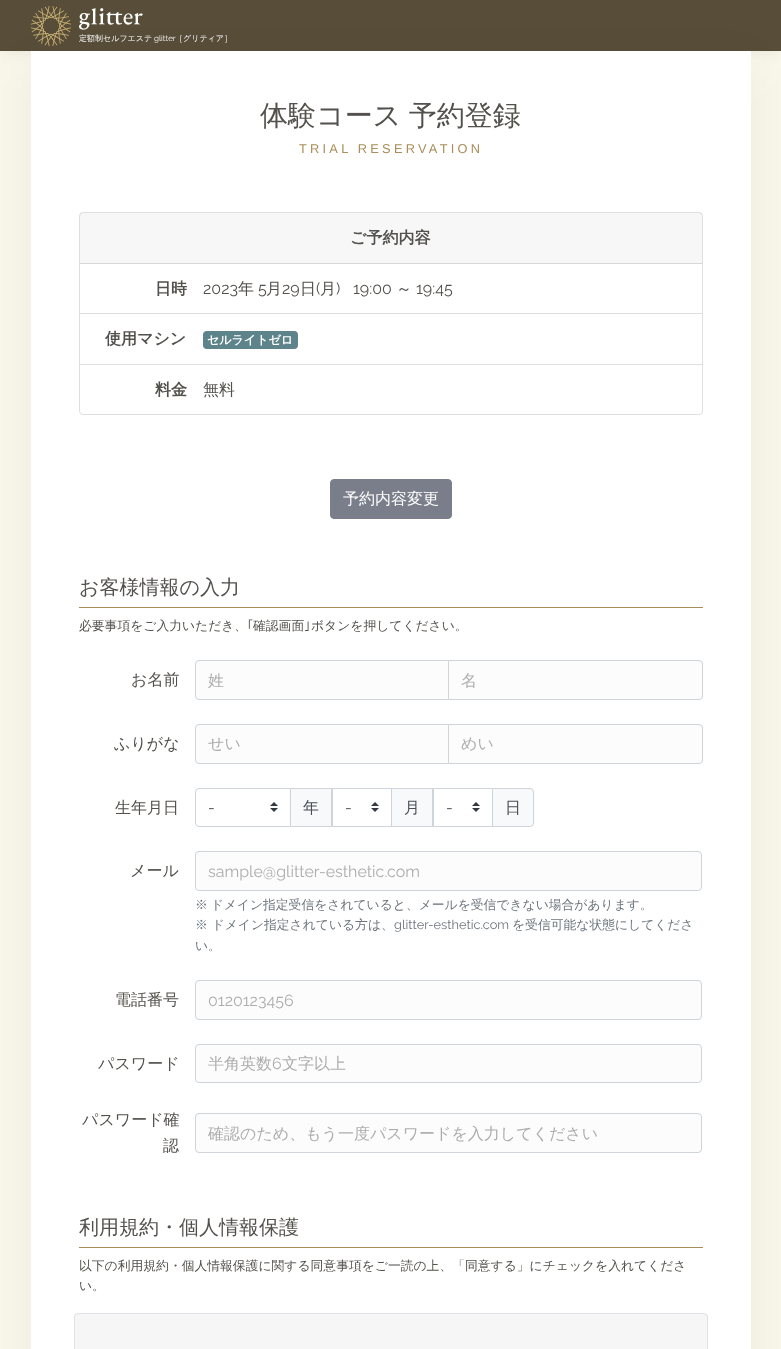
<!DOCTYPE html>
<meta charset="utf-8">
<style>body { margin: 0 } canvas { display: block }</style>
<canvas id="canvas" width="781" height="1349"></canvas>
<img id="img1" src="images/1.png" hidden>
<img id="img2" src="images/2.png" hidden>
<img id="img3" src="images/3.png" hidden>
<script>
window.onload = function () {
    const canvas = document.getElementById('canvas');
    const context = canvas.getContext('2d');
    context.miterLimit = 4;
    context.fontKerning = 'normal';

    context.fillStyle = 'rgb(248, 247, 233)';
    context.fillRect(0, 0, 781, 1349);
    context.fillStyle = 'rgba(0, 0, 0, 0.07)';
    context.filter = 'blur(8px)';
    context.beginPath();
    context.rect(0, 0, 781, 51);
    context.fill();
    context.filter = 'none';
    context.fillStyle = 'rgb(88, 77, 57)';
    context.fillRect(0, 0, 781, 51);
    context.fillStyle = 'rgba(0, 0, 0, 0.05)';
    context.filter = 'blur(24px)';
    context.beginPath();
    context.rect(31, 67, 720, 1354);
    context.fill();
    context.filter = 'none';
    context.drawImage(document.getElementById('img1'), 31, 6, 40, 40);
    context.drawImage(document.getElementById('img2'), 79, 8, 64, 22);
    context.fillStyle = 'rgb(255, 255, 255)';
    context.fillRect(31, 51, 720, 1298);
    context.beginPath();
    context.roundRect(79.5, 212.5, 623, 202, 3.5);
    context.strokeStyle = 'rgb(223, 223, 223)';
    context.stroke();
    context.fillStyle = 'rgba(0, 0, 0, 0.03)';
    context.fillRect(80, 213, 622, 50);
    context.fillStyle = 'rgb(216, 216, 216)';
    context.fillRect(80, 263, 622, 1);
    context.fillStyle = 'rgb(223, 223, 223)';
    context.fillRect(80, 313, 622, 1);
    context.fillRect(80, 364, 622, 1);
    context.fillStyle = 'rgb(94, 132, 139)';
    context.beginPath();
    context.roundRect(203, 331, 95, 18, 4);
    context.fill();
    context.fillStyle = 'rgb(121, 126, 138)';
    context.beginPath();
    context.roundRect(330.5, 479.5, 121, 39, 3.5);
    context.fill();
    context.strokeStyle = 'rgb(121, 126, 138)';
    context.stroke();
    context.fillStyle = 'rgb(170, 141, 87)';
    context.fillRect(79, 607, 624, 1);
    context.fillStyle = 'rgb(252, 252, 252)';
    context.beginPath();
    context.roundRect(195.5, 660.5, 253, 39, [3.5, 0, 0, 3.5]);
    context.fill();
    context.strokeStyle = 'rgb(206, 212, 218)';
    context.stroke();
    context.beginPath();
    context.roundRect(448.5, 660.5, 254, 39, [0, 3.5, 3.5, 0]);
    context.fill();
    context.stroke();
    context.beginPath();
    context.roundRect(195.5, 724.5, 253, 39, [3.5, 0, 0, 3.5]);
    context.fill();
    context.stroke();
    context.beginPath();
    context.roundRect(448.5, 724.5, 254, 39, [0, 3.5, 3.5, 0]);
    context.fill();
    context.stroke();
    context.fillStyle = 'rgb(248, 249, 250)';
    context.beginPath();
    context.rect(290.5, 788.5, 41, 38);
    context.fill();
    context.stroke();
    context.fillStyle = 'rgb(255, 255, 255)';
    context.beginPath();
    context.roundRect(195, 788, 96, 39, [4, 0, 0, 4]);
    context.fill();
    context.drawImage(document.getElementById('img3'), 270, 802, 8, 10);
    context.beginPath();
    context.roundRect(195.5, 788.5, 95, 38, [3.5, 0, 0, 3.5]);
    context.stroke();
    context.drawImage(document.getElementById('img3'), 371, 802, 8, 10);
    context.fillStyle = 'rgb(248, 249, 250)';
    context.beginPath();
    context.rect(391.5, 788.5, 41, 38);
    context.fill();
    context.stroke();
    context.strokeRect(332.5, 788.5, 59, 38);
    context.drawImage(document.getElementById('img3'), 472, 802, 8, 10);
    context.beginPath();
    context.roundRect(492.5, 788.5, 41, 38, [0, 3.5, 3.5, 0]);
    context.fill();
    context.stroke();
    context.strokeRect(433.5, 788.5, 59, 38);
    context.fillStyle = 'rgb(252, 252, 252)';
    context.beginPath();
    context.roundRect(195.5, 851.5, 506, 39, 3.5);
    context.fill();
    context.stroke();
    context.beginPath();
    context.roundRect(195.5, 980.5, 506, 39, 3.5);
    context.fill();
    context.stroke();
    context.beginPath();
    context.roundRect(195.5, 1044.5, 506, 38, 3.5);
    context.fill();
    context.stroke();
    context.beginPath();
    context.roundRect(195.5, 1113.5, 506, 39, 3.5);
    context.fill();
    context.stroke();
    context.fillStyle = 'rgb(170, 141, 87)';
    context.fillRect(79, 1247, 624, 1);
    context.beginPath();
    context.roundRect(74.5, 1313.5, 633, 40, 3.5);
    context.strokeStyle = 'rgb(222, 226, 230)';
    context.stroke();
    context.fillStyle = 'rgba(121, 126, 138, 0.07)';
    context.fillRect(75, 1314, 632, 35);
    context.font = '500 8px WenQuanYi Zen Hei';
    context.fillStyle = 'rgb(248, 249, 250)';
    context.fillText('定額制セルフエステ', 79, 41);
    context.font = '8px Raleway';
    context.fillText('glitter', 154, 41);
    context.font = '500 8px WenQuanYi Zen Hei';
    context.fillText('［グリティア］', 175, 41);
    context.wordSpacing = '-1px';
    context.font = '500 28px WenQuanYi Zen Hei';
    context.fillStyle = 'rgb(83, 81, 77)';
    context.fillText('体験コース 予約登録', 260, 125);
    context.letterSpacing = '3.25px';
    context.wordSpacing = '0px';
    context.font = '12.8px Liberation Sans';
    context.fillStyle = 'rgb(170, 141, 87)';
    context.fillText('TRIAL RESERVATION', 299, 153);
    context.letterSpacing = '0px';
    context.font = 'bold 16px WenQuanYi Zen Hei';
    context.fillStyle = 'rgb(83, 81, 77)';
    context.fillText('ご予約内容', 350, 243);
    context.fillText('日時', 155, 294);
    context.font = '16px Raleway';
    context.fillText('2023', 203, 294);
    context.font = '500 16px WenQuanYi Zen Hei';
    context.fillText('年', 238, 294);
    context.font = '16px Raleway';
    context.fillText('5', 258, 294);
    context.font = '500 16px WenQuanYi Zen Hei';
    context.fillText('月', 266, 294);
    context.font = '16px Raleway';
    context.fillText('29', 282, 294);
    context.font = '500 16px WenQuanYi Zen Hei';
    context.fillText('日', 300, 294);
    context.font = '16px Raleway';
    context.fillText('(', 316, 294);
    context.font = '500 16px WenQuanYi Zen Hei';
    context.fillText('月', 320, 294);
    context.font = '16px Raleway';
    context.fillText(')', 336, 294);
    context.fillText('19:00', 353, 294);
    context.font = '500 16px WenQuanYi Zen Hei';
    context.fillText('～', 396, 294);
    context.font = '16px Raleway';
    context.fillText('19:45', 416, 294);
    context.font = 'bold 16px WenQuanYi Zen Hei';
    context.fillText('使用マシン', 105, 344);
    context.font = 'bold 12px WenQuanYi Zen Hei';
    context.fillStyle = 'rgb(255, 255, 255)';
    context.fillText('セルライトゼロ', 207, 344);
    context.font = 'bold 16px WenQuanYi Zen Hei';
    context.fillStyle = 'rgb(83, 81, 77)';
    context.fillText('料金', 155, 395);
    context.font = '500 16px WenQuanYi Zen Hei';
    context.fillText('無料', 203, 395);
    context.fillStyle = 'rgb(255, 255, 255)';
    context.fillText('予約内容変更', 343, 504);
    context.font = '500 20px WenQuanYi Zen Hei';
    context.fillStyle = 'rgb(83, 81, 77)';
    context.fillText('お客様情報の入力', 79, 594);
    context.font = '500 12.8px WenQuanYi Zen Hei';
    context.fillText('必要事項をご入力いただき、', 79, 630);
    context.font = '12.8px IPAPGothic';
    context.fillText('｢', 247, 630);
    context.font = '500 12.8px WenQuanYi Zen Hei';
    context.fillText('確認画面', 253, 630);
    context.font = '12.8px IPAPGothic';
    context.fillText('｣', 304, 630);
    context.font = '500 12.8px WenQuanYi Zen Hei';
    context.fillText('ボタンを押してください。', 311, 630);
    context.font = '500 16px WenQuanYi Zen Hei';
    context.fillText('お名前', 131, 685);
    context.fillStyle = 'rgb(173, 173, 173)';
    context.fillText('姓', 208, 686);
    context.fillText('名', 461, 686);
    context.fillStyle = 'rgb(83, 81, 77)';
    context.fillText('ふりがな', 114, 749);
    context.fillStyle = 'rgb(173, 173, 173)';
    context.fillText('せい', 208, 749);
    context.fillText('めい', 461, 749);
    context.fillStyle = 'rgb(83, 81, 77)';
    context.fillText('生年月日', 115, 813);
    context.font = '16px Raleway';
    context.fillStyle = 'rgb(73, 80, 87)';
    context.fillText('-', 208, 813);
    context.font = '500 16px WenQuanYi Zen Hei';
    context.fillText('年', 303, 813);
    context.font = '16px Raleway';
    context.fillText('-', 345, 813);
    context.font = '500 16px WenQuanYi Zen Hei';
    context.fillText('月', 404, 813);
    context.font = '16px Raleway';
    context.fillText('-', 446, 813);
    context.font = '500 16px WenQuanYi Zen Hei';
    context.fillText('日', 505, 813);
    context.fillStyle = 'rgb(83, 81, 77)';
    context.fillText('メール', 130, 876);
    context.font = '16px Raleway';
    context.fillStyle = 'rgb(173, 173, 173)';
    context.fillText('sample@glitter-esthetic.com', 208, 877);
    context.wordSpacing = '-1px';
    context.font = '500 12.8px WenQuanYi Zen Hei';
    context.fillStyle = 'rgb(108, 117, 125)';
    context.fillText('※ ドメイン指定受信をされていると、メールを受信できない場合があります。', 195, 909);
    context.wordSpacing = '0px';
    context.fillText('※ ドメイン指定されている方は、', 195, 929);
    context.font = '12.8px Raleway';
    context.fillText('glitter-esthetic.com', 394, 929);
    context.font = '500 12.8px WenQuanYi Zen Hei';
    context.fillText('を受信可能な状態にしてくださ', 512, 929);
    context.fillText('い。', 195, 950);
    context.font = '500 16px WenQuanYi Zen Hei';
    context.fillStyle = 'rgb(83, 81, 77)';
    context.fillText('電話番号', 115, 1005);
    context.font = '16px Raleway';
    context.fillStyle = 'rgb(173, 173, 173)';
    context.fillText('0120123456', 208, 1006);
    context.font = '500 16px WenQuanYi Zen Hei';
    context.fillStyle = 'rgb(83, 81, 77)';
    context.fillText('パスワード', 98, 1069);
    context.fillStyle = 'rgb(173, 173, 173)';
    context.fillText('半角英数', 208, 1069);
    context.font = '16px Raleway';
    context.fillText('6', 272, 1069);
    context.font = '500 16px WenQuanYi Zen Hei';
    context.fillText('文字以上', 282, 1069);
    context.fillStyle = 'rgb(83, 81, 77)';
    context.fillText('パスワード確', 82, 1125);
    context.fillText('認', 163, 1151);
    context.fillStyle = 'rgb(173, 173, 173)';
    context.fillText('確認のため、もう一度パスワードを入力してください', 208, 1139);
    context.font = '500 20px WenQuanYi Zen Hei';
    context.fillStyle = 'rgb(83, 81, 77)';
    context.fillText('利用規約・個人情報保護', 79, 1234);
    context.font = '500 12.8px WenQuanYi Zen Hei';
    context.fillText('以下の利用規約・個人情報保護に関する同意事項をご一読の上、「同意する」にチェックを入れてくださ', 79, 1270);
    context.fillText('い。', 79, 1290);
};
</script>
